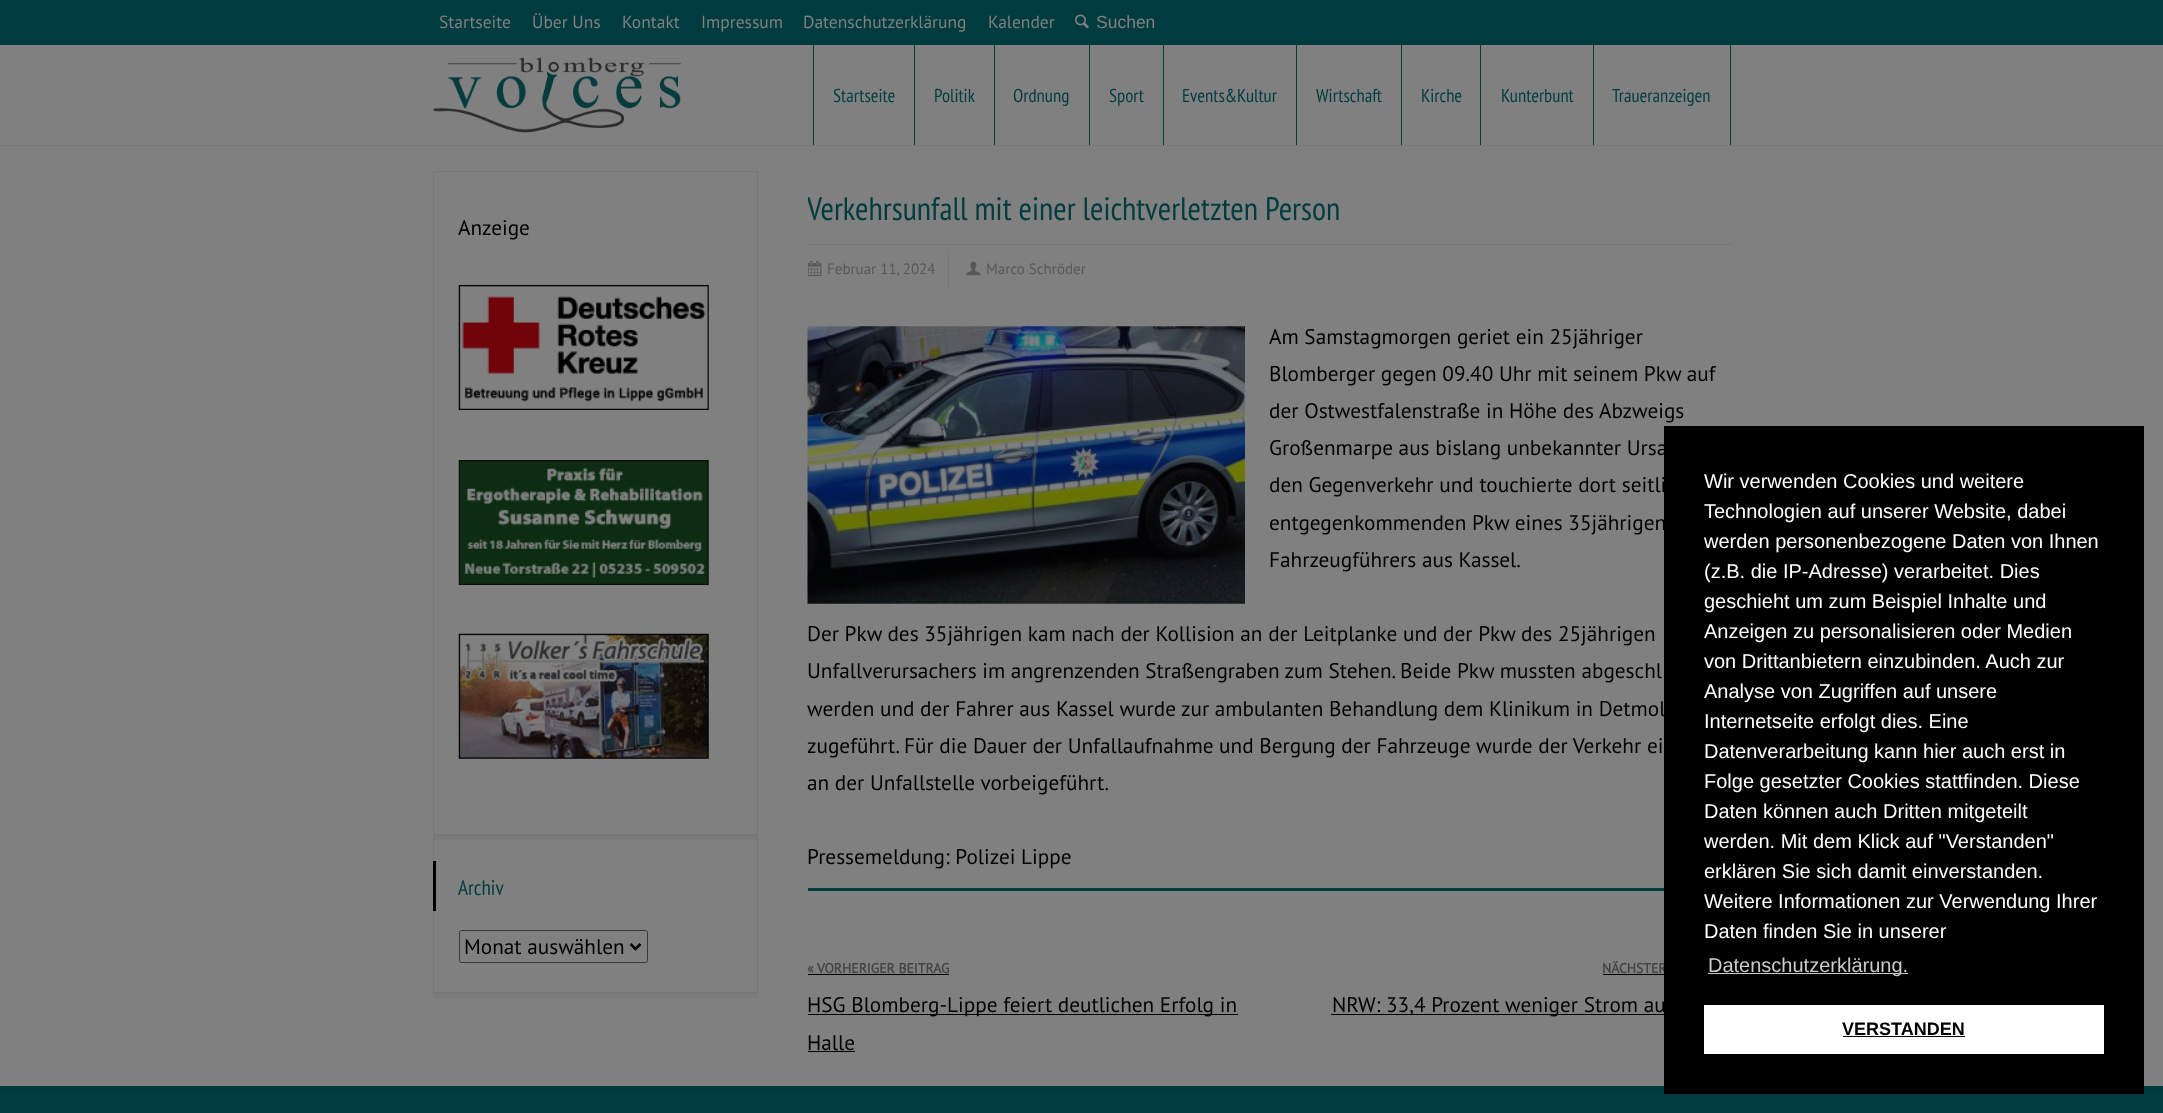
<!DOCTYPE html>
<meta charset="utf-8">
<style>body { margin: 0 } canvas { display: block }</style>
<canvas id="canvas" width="2163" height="1113"></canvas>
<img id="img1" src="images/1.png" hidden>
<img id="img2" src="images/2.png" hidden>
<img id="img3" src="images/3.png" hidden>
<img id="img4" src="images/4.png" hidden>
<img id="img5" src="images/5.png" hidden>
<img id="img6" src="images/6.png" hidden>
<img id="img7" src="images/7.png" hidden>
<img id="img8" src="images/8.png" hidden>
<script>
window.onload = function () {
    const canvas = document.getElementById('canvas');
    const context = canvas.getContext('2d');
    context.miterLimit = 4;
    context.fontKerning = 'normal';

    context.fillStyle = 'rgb(128, 128, 128)';
    context.fillRect(0, 0, 2163, 1113);
    context.fillStyle = 'rgb(0, 60, 63)';
    context.fillRect(0, 0, 2163, 44);
    context.fillStyle = 'rgb(0, 58, 60)';
    context.fillRect(0, 44, 2163, 1);
    context.drawImage(document.getElementById('img1'), 1075, 14, 14, 15);
    context.fillStyle = 'rgb(119, 119, 119)';
    context.fillRect(0, 145, 2163, 1);
    context.drawImage(document.getElementById('img2'), 433, 57, 248, 76);
    context.fillStyle = 'rgb(0, 60, 63)';
    context.fillRect(914, 45, 1, 100);
    context.fillRect(813, 45, 1, 100);
    context.fillRect(994, 45, 1, 100);
    context.fillRect(1089, 45, 1, 100);
    context.fillRect(1163, 45, 1, 100);
    context.fillRect(1296, 45, 1, 100);
    context.fillRect(1401, 45, 1, 100);
    context.fillRect(1480, 45, 1, 100);
    context.fillRect(1593, 45, 1, 100);
    context.fillRect(1730, 45, 1, 100);
    context.fillStyle = 'rgb(123, 123, 123)';
    context.beginPath();
    context.moveTo(433, 835);
    context.lineTo(433, 840);
    context.lineTo(758, 840);
    context.lineTo(758, 176);
    context.lineTo(758, 835);
    context.closePath();
    context.fill();
    context.strokeStyle = 'rgb(119, 119, 119)';
    context.strokeRect(433.5, 171.5, 324, 663);
    context.drawImage(document.getElementById('img3'), 458, 285, 251, 125);
    context.drawImage(document.getElementById('img4'), 458, 460, 251, 125);
    context.drawImage(document.getElementById('img5'), 458, 633, 251, 126);
    context.beginPath();
    context.moveTo(433, 992);
    context.lineTo(433, 998);
    context.lineTo(758, 998);
    context.lineTo(758, 840);
    context.lineTo(758, 992);
    context.closePath();
    context.fill();
    context.strokeRect(433.5, 835.5, 324, 157);
    context.fillStyle = 'rgb(0, 0, 0)';
    context.fillRect(433, 861, 3, 50);
    context.beginPath();
    context.roundRect(459.5, 930.5, 188, 32, 2);
    context.strokeStyle = 'rgb(59, 59, 59)';
    context.stroke();
    context.beginPath();
    context.moveTo(630.5, 944);
    context.lineTo(635.5, 949);
    context.lineTo(640.5, 944);
    context.strokeStyle = 'rgb(0, 0, 0)';
    context.lineWidth = 2.5;
    context.stroke();
    context.fillStyle = 'rgb(119, 119, 119)';
    context.fillRect(808, 244, 925, 1);
    context.fillRect(948, 250, 1, 39);
    context.drawImage(document.getElementById('img6'), 808, 261, 14, 15);
    context.drawImage(document.getElementById('img7'), 966, 261, 15, 15);
    context.drawImage(document.getElementById('img8'), 807, 326, 438, 278);
    context.fillStyle = 'rgb(0, 60, 63)';
    context.fillRect(808, 888, 856, 3);
    context.fillStyle = 'rgb(0, 0, 0)';
    context.fillRect(808, 974, 141, 1);
    context.fillRect(808, 1014, 430, 1);
    context.fillRect(808, 1051, 47, 1);
    context.fillRect(1603, 974, 61, 1);
    context.fillRect(1331, 1014, 333, 1);
    context.fillStyle = 'rgb(0, 60, 63)';
    context.fillRect(0, 1091, 2163, 22);
    context.fillStyle = 'rgb(0, 57, 59)';
    context.fillRect(0, 1086, 2163, 5);
    context.font = '17.5px PT Sans';
    context.fillStyle = 'rgb(128, 128, 128)';
    context.fillText('Startseite', 439, 28);
    context.fillText('Über Uns', 532, 28);
    context.fillText('Kontakt', 622, 28);
    context.fillText('Impressum', 701, 28);
    context.fillText('Datenschutzerklärung', 803, 28);
    context.fillText('Kalender', 988, 28);
    context.font = '17.5px Liberation Sans';
    context.fillText('Suchen', 1096, 28);
    context.font = '18.75px PT Sans Narrow';
    context.fillStyle = 'rgb(0, 60, 63)';
    context.fillText('Startseite', 833, 102);
    context.fillText('Politik', 934, 102);
    context.fillText('Ordnung', 1013, 102);
    context.fillText('Sport', 1109, 102);
    context.fillText('Events&Kultur', 1182, 102);
    context.fillText('Wirtschaft', 1316, 102);
    context.fillText('Kirche', 1421, 102);
    context.fillText('Kunterbunt', 1501, 102);
    context.fillText('Traueranzeigen', 1612, 102);
    context.font = '21.25px PT Sans';
    context.fillStyle = 'rgb(0, 0, 0)';
    context.fillText('Anzeige', 458, 235);
    context.font = '21.25px PT Sans Narrow';
    context.fillStyle = 'rgb(0, 60, 63)';
    context.fillText('Archiv', 458, 895);
    context.font = '21.25px PT Sans';
    context.fillStyle = 'rgb(0, 0, 0)';
    context.fillText('Monat auswählen', 464, 954);
    context.save();
    context.beginPath();
    context.rect(808, 171, 925, 148);
    context.clip();
    context.font = '32.5px PT Sans Narrow';
    context.fillStyle = 'rgb(0, 60, 63)';
    context.fillText('Verkehrsunfall mit einer leichtverletzten Person', 807, 220);
    context.restore();
    context.font = '15px PT Sans';
    context.fillStyle = 'rgb(88, 88, 88)';
    context.fillText('Februar 11, 2024', 827, 274);
    context.fillText('Marco Schröder', 986, 274);
    context.font = '21.25px PT Sans';
    context.fillStyle = 'rgb(0, 0, 0)';
    context.fillText('Am Samstagmorgen geriet ein 25jähriger', 1269, 344);
    context.fillText('Blomberger gegen 09.40 Uhr mit seinem Pkw auf', 1269, 381);
    context.fillText('der Ostwestfalenstraße in Höhe des Abzweigs', 1269, 418);
    context.fillText('Großenmarpe aus bislang unbekannter Ursa', 1269, 455);
    context.fillText('den Gegenverkehr und touchierte dort seitli', 1269, 492);
    context.fillText('entgegenkommenden Pkw eines 35jährigen', 1269, 530);
    context.fillText('Fahrzeugführers aus Kassel.', 1269, 567);
    context.fillText('Der Pkw des 35jährigen kam nach der Kollision an der Leitplanke und der Pkw des 25jährigen', 807, 641);
    context.fillText('Unfallverursachers im angrenzenden Straßengraben zum Stehen. Beide Pkw mussten abgeschl', 807, 678);
    context.fillText('werden und der Fahrer aus Kassel wurde zur ambulanten Behandlung dem Klinikum in Detmol', 807, 716);
    context.fillText('zugeführt. Für die Dauer der Unfallaufnahme und Bergung der Fahrzeuge wurde der Verkehr ei', 807, 753);
    context.fillText('an der Unfallstelle vorbeigeführt.', 807, 790);
    context.fillText('Pressemeldung: Polizei Lippe', 807, 864);
    context.font = 'bold 13.75px PT Sans';
    context.fillStyle = 'rgb(68, 68, 68)';
    context.fillText('«', 807, 973);
    context.fillText('VORHERIGER BEITRAG', 817, 973);
    context.font = '21.25px PT Sans';
    context.fillStyle = 'rgb(0, 0, 0)';
    context.fillText('HSG Blomberg-Lippe feiert deutlichen Erfolg in', 807, 1012);
    context.fillText('Halle', 807, 1050);
    context.font = 'bold 13.75px PT Sans';
    context.fillStyle = 'rgb(68, 68, 68)';
    context.fillText('NÄCHSTER', 1602, 973);
    context.font = '21.25px PT Sans';
    context.fillStyle = 'rgb(0, 0, 0)';
    context.fillText('NRW: 33,4 Prozent weniger Strom au', 1332, 1012);
    context.fillRect(1664, 426, 480, 668);
    context.font = '20px Liberation Sans';
    context.fillStyle = 'rgb(255, 255, 255)';
    context.fillText('Wir verwenden Cookies und weitere', 1704, 488);
    context.fillText('Technologien auf unserer Website, dabei', 1704, 518);
    context.fillText('werden personenbezogene Daten von Ihnen', 1704, 548);
    context.fillText('(z.B. die IP-Adresse) verarbeitet. Dies', 1704, 578);
    context.fillText('geschieht um zum Beispiel Inhalte und', 1704, 608);
    context.fillText('Anzeigen zu personalisieren oder Medien', 1704, 638);
    context.fillText('von Drittanbietern einzubinden. Auch zur', 1704, 668);
    context.fillText('Analyse von Zugriffen auf unsere', 1704, 698);
    context.fillText('Internetseite erfolgt dies. Eine', 1704, 728);
    context.fillText('Datenverarbeitung kann hier auch erst in', 1704, 758);
    context.fillText('Folge gesetzter Cookies stattfinden. Diese', 1704, 788);
    context.fillText('Daten können auch Dritten mitgeteilt', 1704, 818);
    context.fillText('werden. Mit dem Klick auf "Verstanden"', 1704, 848);
    context.fillText('erklären Sie sich damit einverstanden.', 1704, 878);
    context.fillText('Weitere Informationen zur Verwendung Ihrer', 1704, 908);
    context.fillText('Daten finden Sie in unserer', 1704, 938);
    context.fillStyle = 'rgb(204, 204, 204)';
    context.fillRect(1708, 973, 200, 1);
    context.fillText('Datenschutzerklärung.', 1708, 972);
    context.fillStyle = 'rgb(255, 255, 255)';
    context.fillRect(1704, 1005, 400, 49);
    context.font = 'bold 18px Liberation Sans';
    context.fillStyle = 'rgb(0, 0, 0)';
    context.fillText('VERSTANDEN', 1842, 1035);
    context.fillRect(1843, 1036, 122, 1);
};
</script>
